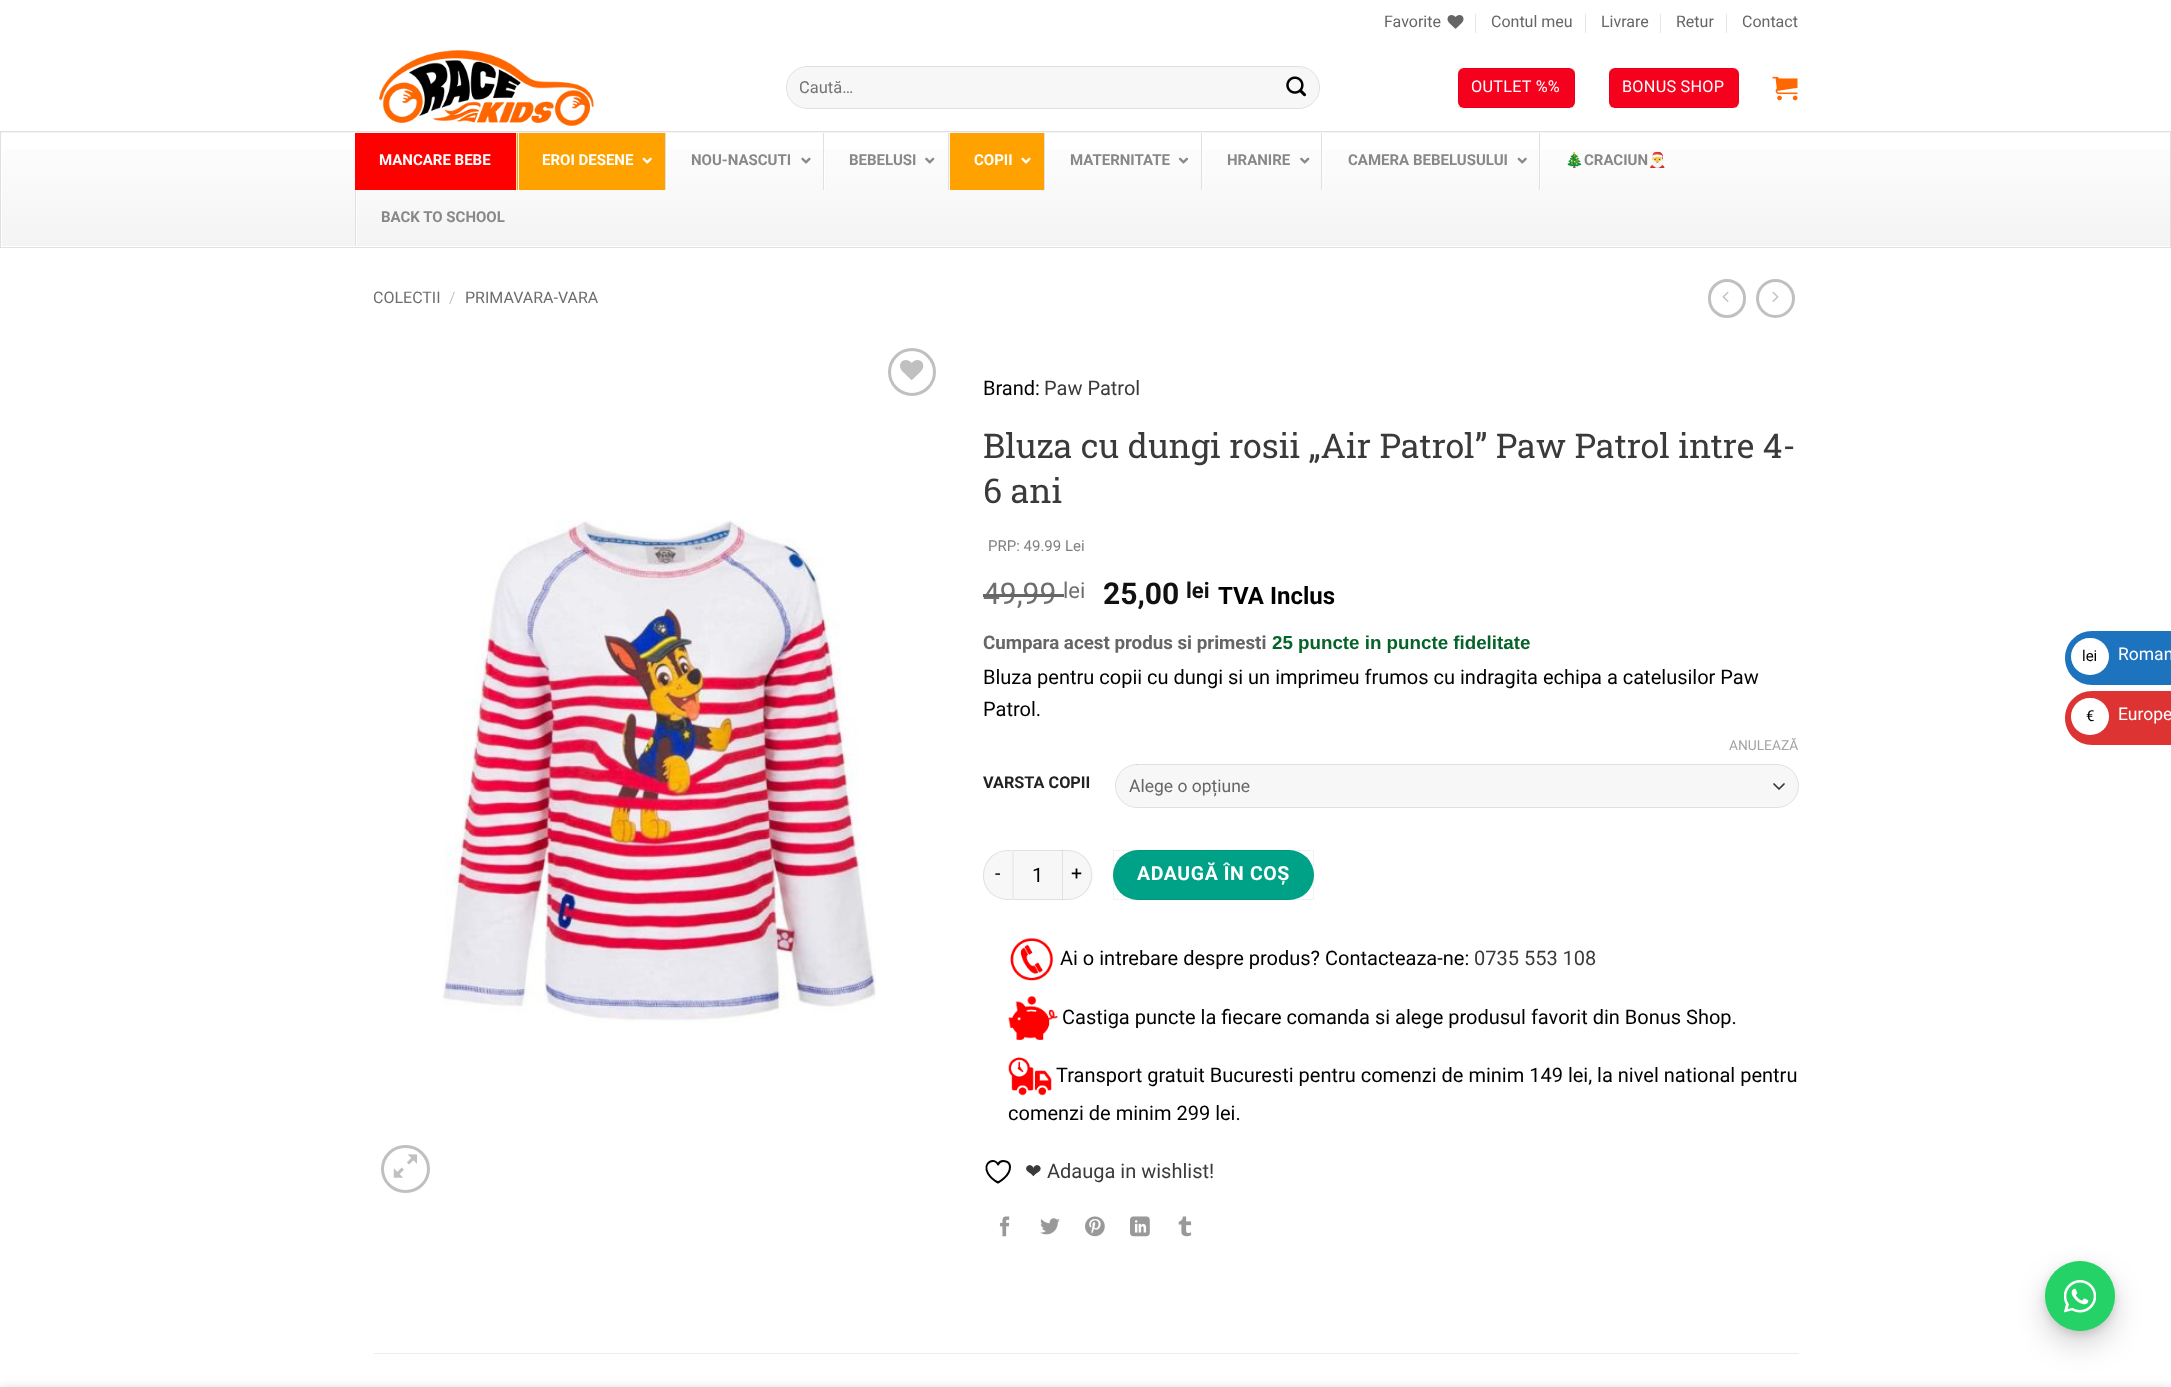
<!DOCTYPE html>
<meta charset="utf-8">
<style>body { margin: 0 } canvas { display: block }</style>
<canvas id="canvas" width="2171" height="1387"></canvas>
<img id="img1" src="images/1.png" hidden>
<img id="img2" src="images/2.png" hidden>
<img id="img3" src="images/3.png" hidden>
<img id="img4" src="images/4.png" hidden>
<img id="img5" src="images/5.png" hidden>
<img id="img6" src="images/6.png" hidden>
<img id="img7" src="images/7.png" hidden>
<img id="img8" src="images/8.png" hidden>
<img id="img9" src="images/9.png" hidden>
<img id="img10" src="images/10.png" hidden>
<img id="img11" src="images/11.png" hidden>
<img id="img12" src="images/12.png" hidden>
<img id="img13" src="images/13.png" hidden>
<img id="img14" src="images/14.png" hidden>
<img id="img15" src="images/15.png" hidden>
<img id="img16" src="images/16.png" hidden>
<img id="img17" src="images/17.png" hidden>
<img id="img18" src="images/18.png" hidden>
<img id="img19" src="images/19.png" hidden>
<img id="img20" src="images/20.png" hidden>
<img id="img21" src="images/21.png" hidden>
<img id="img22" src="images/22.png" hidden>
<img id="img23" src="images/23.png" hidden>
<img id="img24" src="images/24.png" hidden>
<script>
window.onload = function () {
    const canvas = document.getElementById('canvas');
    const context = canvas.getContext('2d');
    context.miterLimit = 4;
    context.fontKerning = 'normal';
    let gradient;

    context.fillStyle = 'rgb(255, 255, 255)';
    context.fillRect(0, 0, 2171, 1387);
    context.drawImage(document.getElementById('img1'), 1447, 15, 17, 14);
    context.fillStyle = 'rgb(230, 230, 230)';
    context.fillRect(1475, 14, 1, 19);
    context.fillRect(1585, 14, 1, 19);
    context.fillRect(1660, 14, 1, 19);
    context.fillRect(1726, 14, 1, 19);
    context.drawImage(document.getElementById('img2'), 379, 50, 215, 76);
    context.fillStyle = 'rgb(247, 247, 247)';
    context.beginPath();
    context.roundRect(786, 66, 534, 43, 21.5);
    context.fill();
    context.beginPath();
    context.roundRect(786.5, 66.5, 533, 42, 21);
    context.strokeStyle = 'rgba(0, 0, 0, 0.09)';
    context.stroke();
    context.drawImage(document.getElementById('img3'), 1286, 76, 20, 21);
    context.fillStyle = 'rgb(245, 0, 29)';
    context.beginPath();
    context.roundRect(1458, 68, 117, 40, 6);
    context.fill();
    context.strokeStyle = 'rgba(0, 0, 0, 0.05)';
    context.strokeRect(1458.5, 68.5, 116, 39);
    context.beginPath();
    context.roundRect(1609, 68, 130, 40, 6);
    context.fill();
    context.strokeRect(1609.5, 68.5, 129, 39);
    context.drawImage(document.getElementById('img4'), 1772, 76, 26, 25);
    gradient = context.createLinearGradient(1086, 19, 1086, 133);
    gradient.addColorStop(0, 'rgb(254, 254, 254)');
    gradient.addColorStop(1, 'rgb(244, 244, 244)');
    context.fillStyle = gradient;
    context.fillRect(0, 132, 2171, 1);
    gradient = context.createLinearGradient(1086, 132, 1086, 246);
    gradient.addColorStop(0, 'rgb(254, 254, 254)');
    gradient.addColorStop(1, 'rgb(244, 244, 244)');
    context.fillStyle = gradient;
    context.fillRect(1, 149, 2169, 97);
    gradient = context.createLinearGradient(1086, 132, 1086, 246);
    gradient.addColorStop(0, 'rgb(255, 255, 255)');
    gradient.addColorStop(1, 'rgb(254, 254, 254)');
    context.fillStyle = gradient;
    context.fillRect(356, 190, 1, 56);
    context.save();
    context.beginPath();
    context.rect(1, 133, 2169, 113);
    context.clip();
    context.fillStyle = 'rgba(255, 255, 255, 0.9)';
    context.beginPath();
    context.moveTo(-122, 9);
    context.lineTo(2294, 9);
    context.lineTo(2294, 370);
    context.lineTo(-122, 370);
    context.closePath();
    context.moveTo(2, 134);
    context.lineTo(2171, 134);
    context.lineTo(2171, 248);
    context.lineTo(2, 248);
    context.closePath();
    context.fill('evenodd');
    context.restore();
    context.strokeStyle = 'rgb(224, 224, 224)';
    context.strokeRect(0.5, 131.5, 2170, 116);
    context.fillStyle = 'rgb(255, 0, 0)';
    context.fillRect(355, 133, 161, 57);
    context.fillStyle = 'rgb(255, 162, 0)';
    context.fillRect(517, 133, 148, 57);
    context.fillStyle = 'rgb(255, 246, 230)';
    context.fillRect(518, 133, 1, 57);
    context.fillStyle = 'rgb(224, 224, 224)';
    context.fillRect(516, 133, 1, 57);
    context.drawImage(document.getElementById('img5'), 642, 157, 10, 7);
    context.fillStyle = 'rgba(255, 255, 255, 0.9)';
    context.fillRect(666, 149, 1, 41);
    context.fillStyle = 'rgb(224, 224, 224)';
    context.fillRect(665, 133, 1, 57);
    context.drawImage(document.getElementById('img6'), 801, 157, 10, 7);
    context.fillStyle = 'rgba(255, 255, 255, 0.9)';
    context.fillRect(824, 149, 1, 41);
    context.fillStyle = 'rgb(224, 224, 224)';
    context.fillRect(823, 133, 1, 57);
    context.drawImage(document.getElementById('img7'), 925, 157, 10, 7);
    context.fillStyle = 'rgb(255, 162, 0)';
    context.fillRect(950, 133, 94, 57);
    context.fillStyle = 'rgb(255, 246, 230)';
    context.fillRect(949, 133, 1, 57);
    context.fillStyle = 'rgb(224, 224, 224)';
    context.fillRect(948, 133, 1, 57);
    context.drawImage(document.getElementById('img8'), 1021, 157, 10, 7);
    context.fillStyle = 'rgba(255, 255, 255, 0.9)';
    context.fillRect(1045, 149, 1, 41);
    context.fillStyle = 'rgb(224, 224, 224)';
    context.fillRect(1044, 133, 1, 57);
    context.drawImage(document.getElementById('img9'), 1178, 157, 11, 7);
    context.fillStyle = 'rgba(255, 255, 255, 0.9)';
    context.fillRect(1203, 149, 1, 41);
    context.fillStyle = 'rgb(224, 224, 224)';
    context.fillRect(1201, 133, 1, 57);
    context.drawImage(document.getElementById('img7'), 1300, 157, 10, 7);
    context.fillStyle = 'rgba(255, 255, 255, 0.9)';
    context.fillRect(1323, 149, 1, 41);
    context.fillStyle = 'rgb(224, 224, 224)';
    context.fillRect(1321, 133, 1, 57);
    context.drawImage(document.getElementById('img10'), 1517, 157, 10, 7);
    context.fillStyle = 'rgba(255, 255, 255, 0.9)';
    context.fillRect(1540, 149, 1, 41);
    context.fillStyle = 'rgb(224, 224, 224)';
    context.fillRect(1539, 133, 1, 57);
    context.fillRect(355, 190, 1, 56);
    context.beginPath();
    context.roundRect(1709.5, 280.5, 35, 36, 17.5);
    context.strokeStyle = 'rgb(192, 192, 192)';
    context.lineWidth = 3;
    context.stroke();
    context.drawImage(document.getElementById('img11'), 1722, 291, 7, 11);
    context.beginPath();
    context.arc(1775.5, 298.5, 18, 0, 2 * Math.PI);
    context.stroke();
    context.drawImage(document.getElementById('img12'), 1772, 291, 7, 11);
    context.beginPath();
    context.arc(912, 372, 22.5, 0, 2 * Math.PI);
    context.stroke();
    context.drawImage(document.getElementById('img13'), 900, 360, 24, 20);
    context.drawImage(document.getElementById('img14'), 442, 520, 434, 503);
    context.beginPath();
    context.roundRect(382.5, 1146.5, 46, 45, 22.5);
    context.stroke();
    context.drawImage(document.getElementById('img15'), 393, 1154, 24, 24);
    context.fillStyle = 'rgb(247, 247, 247)';
    context.beginPath();
    context.roundRect(1115, 764, 684, 44, 22);
    context.fill();
    context.beginPath();
    context.moveTo(1774, 784);
    context.lineTo(1779, 789);
    context.lineTo(1784, 784);
    context.strokeStyle = 'rgb(51, 51, 51)';
    context.lineWidth = 1.7;
    context.lineCap = 'round';
    context.lineJoin = 'round';
    context.stroke();
    context.beginPath();
    context.roundRect(1115.5, 764.5, 683, 43, 21.5);
    context.strokeStyle = 'rgba(0, 0, 0, 0.09)';
    context.lineWidth = 1;
    context.lineJoin = 'miter';
    context.stroke();
    context.beginPath();
    context.roundRect(983, 850, 30, 50, [25, 0, 0, 25]);
    context.fill();
    context.fillStyle = 'rgba(0, 0, 0, 0.09)';
    context.beginPath();
    context.moveTo(1008, 850);
    context.lineTo(1012, 850);
    context.lineTo(1012, 900);
    context.bezierCurveTo(1007, 900, 1003, 900, 998, 898);
    context.bezierCurveTo(973, 888, 981, 850, 1008, 850);
    context.closePath();
    context.moveTo(1008, 851);
    context.lineTo(1012, 851);
    context.lineTo(1012, 899);
    context.bezierCurveTo(1008, 899, 1003, 899, 998, 897);
    context.bezierCurveTo(975, 887, 982, 851, 1008, 851);
    context.closePath();
    context.fill('evenodd');
    context.fillStyle = 'rgb(247, 247, 247)';
    context.beginPath();
    context.rect(1013.5, 850.5, 49, 49);
    context.fill();
    context.strokeStyle = 'rgb(225, 225, 225)';
    context.stroke();
    context.beginPath();
    context.roundRect(1063, 850, 30, 50, [0, 25, 25, 0]);
    context.fill();
    context.fillStyle = 'rgba(0, 0, 0, 0.09)';
    context.beginPath();
    context.moveTo(1062, 850);
    context.lineTo(1068, 850);
    context.bezierCurveTo(1081, 850, 1092, 861, 1092, 875);
    context.bezierCurveTo(1092, 889, 1081, 900, 1068, 900);
    context.lineTo(1062, 900);
    context.closePath();
    context.moveTo(1062, 851);
    context.lineTo(1068, 851);
    context.bezierCurveTo(1081, 851, 1091, 862, 1091, 875);
    context.bezierCurveTo(1091, 888, 1081, 899, 1068, 899);
    context.lineTo(1062, 899);
    context.closePath();
    context.fill('evenodd');
    context.fillStyle = 'rgb(0, 162, 135)';
    context.beginPath();
    context.roundRect(1113, 850, 201, 50, 25);
    context.fill();
    context.strokeStyle = 'rgba(0, 0, 0, 0.05)';
    context.strokeRect(1113.5, 850.5, 200, 49);
    context.drawImage(document.getElementById('img16'), 1010, 938, 43, 43);
    context.drawImage(document.getElementById('img17'), 1008, 996, 50, 44);
    context.drawImage(document.getElementById('img18'), 1008, 1057, 44, 39);
    context.beginPath();
    context.moveTo(1010, 1167);
    context.bezierCurveTo(1010, 1160.5, 1000.5, 1159, 998, 1164.5);
    context.bezierCurveTo(995, 1157, 982, 1162, 988, 1173.5);
    context.bezierCurveTo(990.5, 1177.5, 994, 1180.5, 998, 1182.5);
    context.bezierCurveTo(998, 1182.5, 1010, 1176.5, 1010, 1167);
    context.closePath();
    context.strokeStyle = 'rgb(0, 0, 0)';
    context.lineWidth = 2;
    context.lineJoin = 'round';
    context.stroke();
    context.drawImage(document.getElementById('img19'), 999, 1216, 11, 21);
    context.drawImage(document.getElementById('img20'), 1040, 1218, 20, 17);
    context.drawImage(document.getElementById('img21'), 1085, 1216, 20, 21);
    context.drawImage(document.getElementById('img22'), 1130, 1216, 20, 21);
    context.drawImage(document.getElementById('img23'), 1178, 1216, 14, 21);
    context.fillStyle = 'rgb(236, 236, 236)';
    context.fillRect(374, 1353, 1425, 1);
    context.fillStyle = 'rgb(30, 115, 190)';
    context.beginPath();
    context.moveTo(2092, 631);
    context.lineTo(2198, 631);
    context.lineTo(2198, 685);
    context.lineTo(2092, 685);
    context.bezierCurveTo(2077, 685, 2065, 673, 2065, 658);
    context.bezierCurveTo(2065, 643, 2077, 631, 2092, 631);
    context.closePath();
    context.fill();
    context.fillStyle = 'rgb(255, 255, 255)';
    context.beginPath();
    context.roundRect(2071, 638, 38, 37, 18.5);
    context.fill();
    context.fillStyle = 'rgb(221, 51, 51)';
    context.beginPath();
    context.moveTo(2092, 691);
    context.lineTo(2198, 691);
    context.lineTo(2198, 745);
    context.lineTo(2092, 745);
    context.bezierCurveTo(2077, 745, 2065, 733, 2065, 718);
    context.bezierCurveTo(2065, 703, 2077, 691, 2092, 691);
    context.closePath();
    context.fill();
    context.fillStyle = 'rgb(255, 255, 255)';
    context.beginPath();
    context.roundRect(2071, 698, 38, 37, 18.5);
    context.fill();
    context.fillStyle = 'rgba(0, 0, 0, 0.12)';
    context.filter = 'blur(4px)';
    context.beginPath();
    context.roundRect(2045, 1264, 70, 70, 35);
    context.fill();
    context.filter = 'none';
    context.fillStyle = 'rgba(0, 0, 0, 0.18)';
    context.filter = 'blur(15px)';
    context.beginPath();
    context.roundRect(2045, 1274, 70, 70, 35);
    context.fill();
    context.filter = 'none';
    context.fillStyle = 'rgb(37, 211, 102)';
    context.beginPath();
    context.arc(2080, 1296, 35, 0, 2 * Math.PI);
    context.fill();
    context.fillStyle = 'rgba(37, 211, 102, 0.4)';
    context.beginPath();
    context.arc(2080, 1296, 35, 0, 2 * Math.PI);
    context.fill();
    context.drawImage(document.getElementById('img24'), 2064, 1280, 32, 33);
    context.fillStyle = 'rgba(0, 0, 0, 0.14)';
    context.filter = 'blur(5.5px)';
    context.beginPath();
    context.rect(0, 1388, 2171, 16);
    context.fill();
    context.filter = 'none';
    context.font = '16px Roboto';
    context.fillStyle = 'rgb(102, 102, 102)';
    context.fillText('Favorite', 1384, 27);
    context.fillText('Contul meu', 1491, 27);
    context.fillText('Livrare', 1601, 27);
    context.fillText('Retur', 1676, 27);
    context.fillText('Contact', 1742, 27);
    context.font = '16.5px Roboto';
    context.fillStyle = 'rgb(117, 117, 117)';
    context.fillText('Caută…', 799, 93);
    context.letterSpacing = '0.25px';
    context.font = '16.25px Roboto';
    context.fillStyle = 'rgb(255, 255, 255)';
    context.fillText('OUTLET %%', 1471, 92);
    context.fillText('BONUS SHOP', 1622, 92);
    context.letterSpacing = '0px';
    context.font = 'bold 15px Roboto';
    context.fillText('MANCARE BEBE', 379, 165);
    context.fillText('EROI DESENE', 542, 165);
    context.fillStyle = 'rgb(136, 136, 136)';
    context.fillText('NOU-NASCUTI', 691, 165);
    context.fillText('BEBELUSI', 849, 165);
    context.fillStyle = 'rgb(255, 255, 255)';
    context.fillText('COPII', 974, 165);
    context.fillStyle = 'rgb(136, 136, 136)';
    context.fillText('MATERNITATE', 1070, 165);
    context.fillText('HRANIRE', 1227, 165);
    context.fillText('CAMERA BEBELUSULUI', 1348, 165);
    context.font = 'bold 15px Noto Color Emoji';
    context.fillText('🎄', 1565, 165);
    context.font = 'bold 15px Roboto';
    context.fillText('CRACIUN', 1584, 165);
    context.font = 'bold 15px Noto Color Emoji';
    context.fillText('🎅', 1648, 165);
    context.font = 'bold 15px Roboto';
    context.fillText('BACK TO SCHOOL', 381, 222);
    context.font = '16px Roboto';
    context.fillStyle = 'rgb(110, 110, 110)';
    context.fillText('COLECTII', 373, 303);
    context.font = '300 16px Roboto';
    context.fillStyle = 'rgb(178, 178, 178)';
    context.fillText('/', 449, 303);
    context.font = '16px Roboto';
    context.fillStyle = 'rgb(110, 110, 110)';
    context.fillText('PRIMAVARA-VARA', 465, 303);
    context.font = '20px Roboto';
    context.fillStyle = 'rgb(0, 0, 0)';
    context.fillText('Brand:', 983, 395);
    context.fillStyle = 'rgb(58, 58, 58)';
    context.fillText('Paw Patrol', 1044, 395);
    context.font = '34px Roboto Slab';
    context.fillText('Bluza cu dungi rosii „Air Patrol” Paw Patrol intre 4-', 983, 458);
    context.fillText('6 ani', 983, 503);
    context.font = '15px Roboto';
    context.fillStyle = 'rgb(128, 128, 128)';
    context.fillText('PRP: 49.99 Lei', 988, 551);
    context.font = '30px Roboto';
    context.fillStyle = 'rgb(110, 110, 110)';
    context.fillText('49,99', 983, 604);
    context.fillStyle = 'rgb(102, 102, 102)';
    context.fillRect(983, 594, 81, 3);
    context.font = '22px Roboto';
    context.fillStyle = 'rgb(110, 110, 110)';
    context.fillText('lei', 1063, 598);
    context.font = 'bold 30px Roboto';
    context.fillStyle = 'rgb(17, 17, 17)';
    context.fillText('25,00', 1103, 604);
    context.font = 'bold 22px Roboto';
    context.fillText('lei', 1186, 598);
    context.font = 'bold 24px Roboto';
    context.fillStyle = 'rgb(0, 0, 0)';
    context.fillText('TVA Inclus', 1218, 604);
    context.font = 'bold 18.75px Roboto';
    context.fillStyle = 'rgb(102, 102, 102)';
    context.fillText('Cumpara acest produs si primesti', 983, 649);
    context.font = 'bold 18.75px Liberation Sans';
    context.fillStyle = 'rgb(6, 99, 41)';
    context.fillText('25 puncte in puncte fidelitate', 1272, 649);
    context.font = '20px Roboto';
    context.fillStyle = 'rgb(0, 0, 0)';
    context.fillText('Bluza pentru copii cu dungi si un imprimeu frumos cu indragita echipa a catelusilor Paw', 983, 684);
    context.fillText('Patrol.', 983, 716);
    context.font = 'bold 16.25px Roboto';
    context.fillStyle = 'rgb(34, 34, 34)';
    context.fillText('VARSTA COPII', 983, 788);
    context.font = '13.75px Roboto';
    context.fillStyle = 'rgb(163, 163, 163)';
    context.fillText('ANULEAZĂ', 1729, 750);
    context.font = '17.5px Roboto';
    context.fillStyle = 'rgb(102, 102, 102)';
    context.fillText('Alege o opțiune', 1129, 792);
    context.letterSpacing = '0.6px';
    context.font = '19.5px Roboto';
    context.fillStyle = 'rgb(0, 0, 0)';
    context.fillText('-', 995, 880);
    context.letterSpacing = '0px';
    context.font = '20px Roboto';
    context.fillText('1', 1032, 882);
    context.letterSpacing = '0.6px';
    context.font = '19.5px Roboto';
    context.fillText('+', 1071, 880);
    context.font = 'bold 19.5px Roboto';
    context.fillStyle = 'rgb(255, 255, 255)';
    context.fillText('ADAUGĂ ÎN COȘ', 1137, 880);
    context.letterSpacing = '0px';
    context.font = '20px Roboto';
    context.fillStyle = 'rgb(0, 0, 0)';
    context.fillText('Ai o intrebare despre produs? Contacteaza-ne:', 1060, 965);
    context.fillStyle = 'rgb(58, 58, 58)';
    context.fillText('0735 553 108', 1474, 965);
    context.fillStyle = 'rgb(0, 0, 0)';
    context.fillText('Castiga puncte la fiecare comanda si alege produsul favorit din Bonus Shop.', 1062, 1024);
    context.fillText('Transport gratuit Bucuresti pentru comenzi de minim 149 lei, la nivel national pentru', 1056, 1082);
    context.fillText('comenzi de minim 299 lei.', 1008, 1120);
    context.font = '20px DejaVu Sans';
    context.fillStyle = 'rgb(58, 58, 58)';
    context.fillText('❤', 1025, 1178);
    context.font = '20px Roboto';
    context.fillText('Adauga in wishlist!', 1047, 1178);
    context.font = '15px Roboto';
    context.fillStyle = 'rgb(0, 0, 0)';
    context.fillText('lei', 2082, 661);
    context.font = '17.5px Roboto';
    context.fillStyle = 'rgb(255, 255, 255)';
    context.fillText('Roman', 2118, 660);
    context.font = '15px Roboto';
    context.fillStyle = 'rgb(0, 0, 0)';
    context.fillText('€', 2086, 721);
    context.font = '17.5px Roboto';
    context.fillStyle = 'rgb(255, 255, 255)';
    context.fillText('Europe', 2118, 720);
};
</script>
